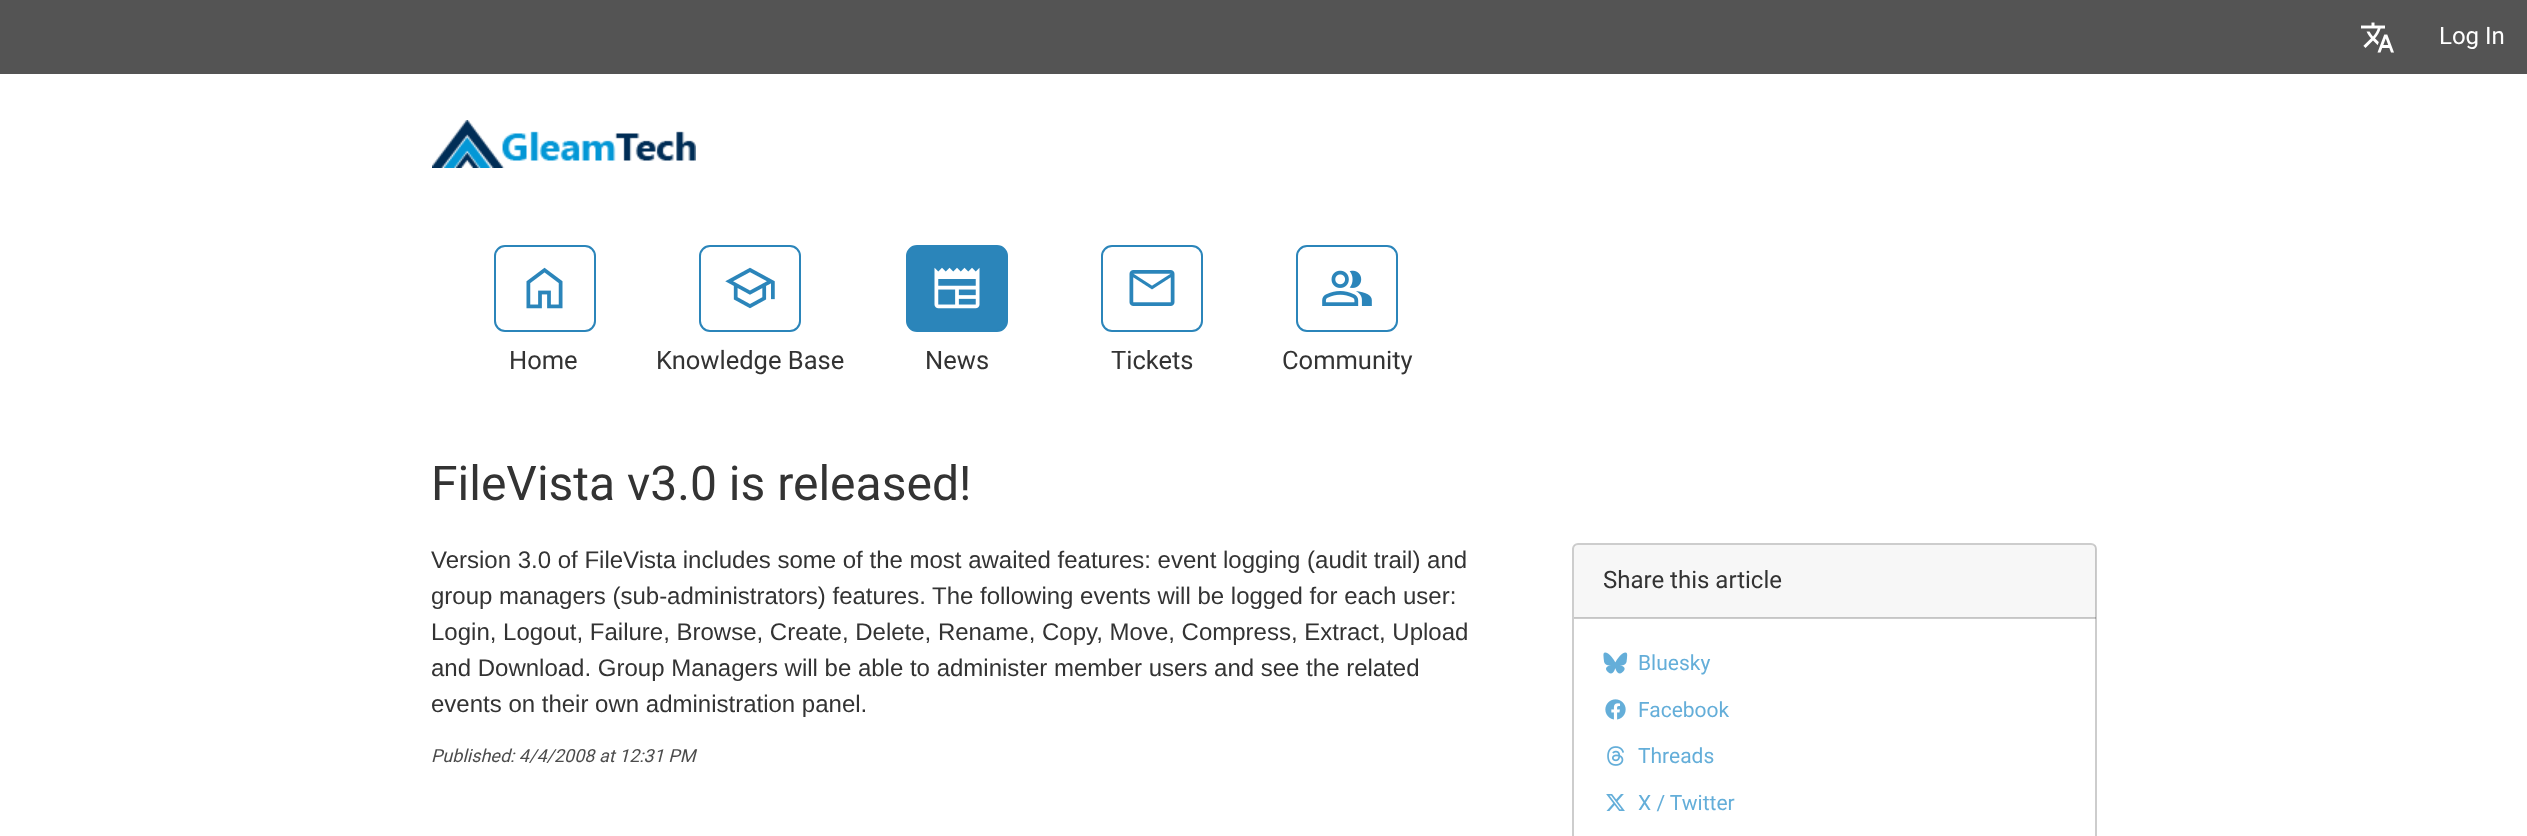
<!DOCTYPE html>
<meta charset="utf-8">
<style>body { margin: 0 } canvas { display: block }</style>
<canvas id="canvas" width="2527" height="836"></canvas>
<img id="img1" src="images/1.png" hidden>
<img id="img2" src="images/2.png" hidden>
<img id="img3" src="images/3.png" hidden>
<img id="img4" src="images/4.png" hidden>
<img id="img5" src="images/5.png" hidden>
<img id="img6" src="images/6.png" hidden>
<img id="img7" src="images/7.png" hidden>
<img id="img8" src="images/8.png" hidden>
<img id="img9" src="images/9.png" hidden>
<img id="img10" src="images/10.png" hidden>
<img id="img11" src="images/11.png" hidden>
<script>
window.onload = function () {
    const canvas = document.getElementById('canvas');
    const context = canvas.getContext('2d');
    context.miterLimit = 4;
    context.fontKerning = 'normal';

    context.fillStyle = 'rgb(255, 255, 255)';
    context.fillRect(0, 0, 2527, 836);
    context.fillStyle = 'rgb(84, 84, 84)';
    context.fillRect(0, 0, 2527, 74);
    context.drawImage(document.getElementById('img1'), 2361, 22, 33, 31);
    context.drawImage(document.getElementById('img2'), 432, 120, 264, 48);
    context.beginPath();
    context.roundRect(495, 246, 100, 85, 10);
    context.strokeStyle = 'rgb(43, 133, 186)';
    context.lineWidth = 2;
    context.stroke();
    context.drawImage(document.getElementById('img3'), 526, 267, 37, 42);
    context.beginPath();
    context.roundRect(700, 246, 100, 85, 10);
    context.stroke();
    context.drawImage(document.getElementById('img4'), 725, 267, 50, 42);
    context.fillStyle = 'rgb(43, 133, 186)';
    context.beginPath();
    context.roundRect(907, 246, 100, 85, 10);
    context.fill();
    context.stroke();
    context.drawImage(document.getElementById('img5'), 934, 267, 46, 42);
    context.beginPath();
    context.roundRect(1102, 246, 100, 85, 10);
    context.stroke();
    context.drawImage(document.getElementById('img6'), 1129, 270, 46, 36);
    context.beginPath();
    context.roundRect(1297, 246, 100, 85, 10);
    context.stroke();
    context.drawImage(document.getElementById('img7'), 1322, 270, 50, 36);
    context.beginPath();
    context.roundRect(1573, 544, 523, 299, 5);
    context.strokeStyle = 'rgb(205, 205, 205)';
    context.stroke();
    context.fillStyle = 'rgba(0, 0, 0, 0.03)';
    context.fillRect(1574, 545, 522, 73);
    context.fillStyle = 'rgba(0, 0, 0, 0.2)';
    context.fillRect(1574, 617, 522, 2);
    context.drawImage(document.getElementById('img8'), 1603, 652, 25, 22);
    context.drawImage(document.getElementById('img9'), 1605, 699, 21, 21);
    context.drawImage(document.getElementById('img10'), 1607, 746, 17, 20);
    context.drawImage(document.getElementById('img11'), 1606, 794, 19, 17);
    context.font = '24px Roboto';
    context.fillStyle = 'rgb(255, 255, 255)';
    context.fillText('Log In', 2439, 44);
    context.font = '25.5px Roboto';
    context.fillStyle = 'rgb(51, 51, 51)';
    context.fillText('Home', 509, 369);
    context.fillText('Knowledge Base', 656, 369);
    context.fillText('News', 925, 369);
    context.fillText('Tickets', 1111, 369);
    context.fillText('Community', 1282, 369);
    context.font = '48px Roboto';
    context.fillText('FileVista v3.0 is released!', 431, 500);
    context.font = '24px Liberation Sans';
    context.fillText('Version 3.0 of FileVista includes some of the most awaited features: event logging (audit trail) and', 431, 568);
    context.fillText('group managers (sub-administrators) features.', 431, 604);
    context.fillText('The following events will be logged for each user:', 932, 604);
    context.fillText('Login, Logout, Failure, Browse, Create, Delete, Rename, Copy, Move, Compress, Extract, Upload', 431, 640);
    context.fillText('and Download. Group Managers will be able to administer member users and see the related', 431, 676);
    context.fillText('events on their own administration panel.', 431, 712);
    context.font = 'italic 18px Roboto';
    context.fillStyle = 'rgb(76, 76, 76)';
    context.fillText('Published: 4/4/2008 at 12:31 PM', 431, 762);
    context.font = '24px Roboto';
    context.fillStyle = 'rgb(51, 51, 51)';
    context.fillText('Share this article', 1603, 588);
    context.font = '21px Roboto';
    context.fillStyle = 'rgb(100, 174, 217)';
    context.fillText('Bluesky', 1638, 670);
    context.fillText('Facebook', 1638, 717);
    context.fillText('Threads', 1638, 763);
    context.fillText('X / Twitter', 1638, 810);
};
</script>
